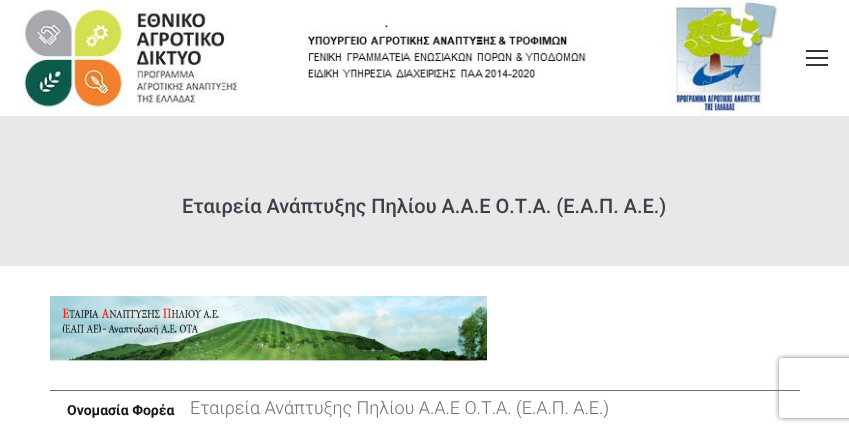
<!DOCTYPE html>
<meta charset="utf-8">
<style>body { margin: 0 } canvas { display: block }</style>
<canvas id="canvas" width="849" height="432"></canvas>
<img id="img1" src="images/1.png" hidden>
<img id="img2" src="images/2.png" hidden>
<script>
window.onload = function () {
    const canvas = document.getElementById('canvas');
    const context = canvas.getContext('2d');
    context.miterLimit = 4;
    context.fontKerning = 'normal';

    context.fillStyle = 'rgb(255, 255, 255)';
    context.fillRect(0, 0, 849, 432);
    context.drawImage(document.getElementById('img1'), 20, 0, 758, 116);
    context.fillStyle = 'rgb(51, 51, 51)';
    context.fillRect(806, 50, 22, 2);
    context.fillRect(806, 57, 22, 2);
    context.fillRect(806, 64, 22, 2);
    context.fillStyle = 'rgb(232, 232, 232)';
    context.fillRect(0, 116, 849, 150);
    context.drawImage(document.getElementById('img2'), 50, 296, 437, 65);
    context.fillStyle = 'rgb(109, 110, 114)';
    context.fillRect(50, 390, 750, 1);
    context.save();
    context.beginPath();
    context.moveTo(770, 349);
    context.lineTo(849, 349);
    context.lineTo(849, 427);
    context.lineTo(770, 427);
    context.closePath();
    context.moveTo(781, 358);
    context.lineTo(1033, 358);
    context.bezierCurveTo(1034, 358, 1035, 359, 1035, 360);
    context.lineTo(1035, 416);
    context.bezierCurveTo(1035, 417, 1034, 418, 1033, 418);
    context.lineTo(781, 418);
    context.bezierCurveTo(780, 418, 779, 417, 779, 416);
    context.lineTo(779, 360);
    context.bezierCurveTo(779, 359, 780, 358, 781, 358);
    context.closePath();
    context.clip('evenodd');
    context.fillStyle = 'rgb(128, 128, 128)';
    context.filter = 'blur(2.5px)';
    context.beginPath();
    context.roundRect(779, 358, 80, 60, 2);
    context.fill();
    context.filter = 'none';
    context.restore();
    context.font = '500 20px Roboto';
    context.fillStyle = 'rgb(59, 63, 74)';
    context.fillText('Εταιρεία Ανάπτυξης Πηλίου Α.Α.Ε Ο.Τ.Α. (Ε.Α.Π. Α.Ε.)', 182, 213);
    context.font = 'bold 14px Roboto';
    context.fillStyle = 'rgb(22, 22, 22)';
    context.fillText('Ονομασία Φορέα', 67, 415);
    context.font = '300 18px Roboto';
    context.fillStyle = 'rgb(109, 110, 112)';
    context.fillText('Εταιρεία Ανάπτυξης Πηλίου Α.Α.Ε Ο.Τ.Α. (Ε.Α.Π. Α.Ε.)', 190, 414);
};
</script>
